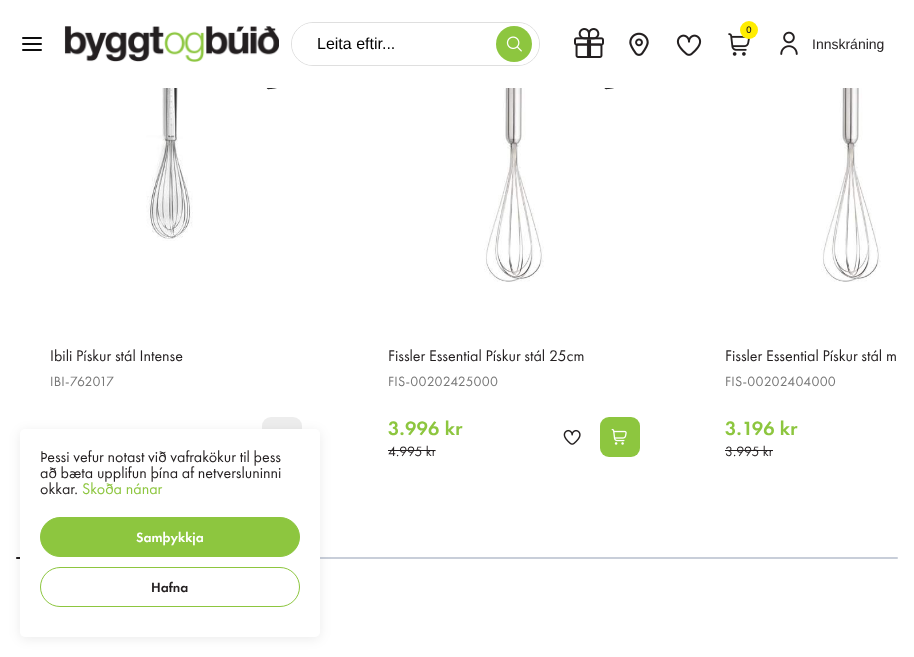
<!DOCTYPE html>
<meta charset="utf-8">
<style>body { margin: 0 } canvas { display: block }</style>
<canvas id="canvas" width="914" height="657"></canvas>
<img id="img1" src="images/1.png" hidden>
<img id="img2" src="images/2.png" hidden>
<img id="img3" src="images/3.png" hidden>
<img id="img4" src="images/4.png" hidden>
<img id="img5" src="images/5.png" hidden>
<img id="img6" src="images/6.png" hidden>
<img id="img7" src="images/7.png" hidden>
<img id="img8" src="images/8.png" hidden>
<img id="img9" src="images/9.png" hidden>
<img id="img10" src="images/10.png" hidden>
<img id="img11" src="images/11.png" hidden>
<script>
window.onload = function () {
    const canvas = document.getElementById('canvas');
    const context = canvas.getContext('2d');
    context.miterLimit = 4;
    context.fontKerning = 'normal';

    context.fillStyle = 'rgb(255, 255, 255)';
    context.fillRect(0, 0, 914, 657);
    context.fillStyle = 'rgb(39, 39, 39)';
    context.beginPath();
    context.moveTo(270, 68);
    context.lineTo(323, 63);
    context.bezierCurveTo(326, 63, 324, 74, 324, 76);
    context.bezierCurveTo(323, 86, 324, 83, 313, 84);
    context.lineTo(286, 87);
    context.bezierCurveTo(263, 89, 266, 94, 268, 76);
    context.bezierCurveTo(268, 74, 267, 69, 270, 68);
    context.closePath();
    context.fill();
    context.beginPath();
    context.moveTo(607, 68);
    context.lineTo(661, 63);
    context.bezierCurveTo(664, 63, 661, 74, 661, 76);
    context.bezierCurveTo(660, 86, 661, 83, 650, 84);
    context.lineTo(623, 87);
    context.bezierCurveTo(601, 89, 604, 94, 605, 76);
    context.bezierCurveTo(605, 74, 604, 69, 607, 68);
    context.closePath();
    context.fill();
    context.fillStyle = 'rgb(255, 255, 255)';
    context.fillRect(266, 63, 397, 25);
    context.beginPath();
    context.moveTo(23, 44);
    context.lineTo(41, 44);
    context.moveTo(23, 38);
    context.lineTo(41, 38);
    context.moveTo(23, 50);
    context.lineTo(41, 50);
    context.strokeStyle = 'rgb(13, 13, 13)';
    context.lineWidth = 2;
    context.lineCap = 'round';
    context.lineJoin = 'round';
    context.stroke();
    context.drawImage(document.getElementById('img1'), 64, 26, 215, 36);
    context.beginPath();
    context.roundRect(291.5, 22.5, 248, 43, 21.5);
    context.strokeStyle = 'rgb(223, 223, 223)';
    context.lineWidth = 1;
    context.lineJoin = 'miter';
    context.stroke();
    context.beginPath();
    context.roundRect(292, 23, 247, 42, 21);
    context.fill();
    context.fillStyle = 'rgb(141, 198, 63)';
    context.beginPath();
    context.arc(514, 44, 18, 0, 2 * Math.PI);
    context.fill();
    context.drawImage(document.getElementById('img2'), 506, 36, 16, 16);
    context.drawImage(document.getElementById('img3'), 574, 28, 30, 30);
    context.drawImage(document.getElementById('img4'), 629, 32, 20, 24);
    context.drawImage(document.getElementById('img5'), 676, 34, 26, 22);
    context.drawImage(document.getElementById('img6'), 728, 33, 22, 23);
    context.fillStyle = 'rgb(255, 237, 0)';
    context.beginPath();
    context.arc(749, 30, 9, 0, 2 * Math.PI);
    context.fill();
    context.drawImage(document.getElementById('img7'), 780, 31, 18, 24);
    context.drawImage(document.getElementById('img8'), 146, 88, 47, 153);
    context.fillStyle = 'rgb(237, 237, 237)';
    context.beginPath();
    context.roundRect(262, 417, 40, 40, 9);
    context.fill();
    context.drawImage(document.getElementById('img9'), 484, 88, 60, 194);
    context.fillStyle = 'rgb(35, 31, 32)';
    context.fillRect(388, 450, 47, 1);
    context.drawImage(document.getElementById('img10'), 563, 429, 18, 16);
    context.fillStyle = 'rgb(141, 198, 63)';
    context.beginPath();
    context.roundRect(600, 417, 40, 40, 9);
    context.fill();
    context.drawImage(document.getElementById('img11'), 611, 428, 16, 17);
    context.drawImage(document.getElementById('img9'), 821, 88, 60, 194);
    context.fillStyle = 'rgb(35, 31, 32)';
    context.fillRect(725, 450, 48, 1);
    context.fillStyle = 'rgb(200, 206, 217)';
    context.beginPath();
    context.roundRect(16, 557, 882, 2, 1);
    context.fill();
    context.fillStyle = 'rgb(35, 31, 32)';
    context.beginPath();
    context.roundRect(16, 557, 258, 2, 1);
    context.fill();
    context.fillStyle = 'rgba(0, 0, 0, 0.08)';
    context.filter = 'blur(6px)';
    context.beginPath();
    context.roundRect(20, 431, 300, 208, 5);
    context.fill();
    context.filter = 'none';
    context.fillStyle = 'rgb(255, 255, 255)';
    context.beginPath();
    context.roundRect(20, 429, 300, 208, 5);
    context.fill();
    context.fillStyle = 'rgb(141, 198, 63)';
    context.beginPath();
    context.roundRect(40.5, 517.5, 259, 39, 19.5);
    context.fill();
    context.strokeStyle = 'rgb(141, 198, 63)';
    context.stroke();
    context.beginPath();
    context.roundRect(40.5, 567.5, 259, 39, 19.5);
    context.stroke();
    context.font = '16px Liberation Sans';
    context.fillStyle = 'rgb(0, 0, 0)';
    context.fillText('Leita eftir...', 317, 49);
    context.font = '500 10px "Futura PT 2"';
    context.fillStyle = 'rgb(35, 31, 32)';
    context.fillText('0', 746, 33);
    context.font = '14px Liberation Sans';
    context.fillText('Innskráning', 812, 49);
    context.font = '16px Futura PT';
    context.fillText('Ibili Pískur stál Intense', 50, 361);
    context.letterSpacing = '0.25px';
    context.font = '14px Futura PT';
    context.fillStyle = 'rgb(119, 119, 119)';
    context.fillText('IBI-762017', 50, 386);
    context.letterSpacing = '0px';
    context.font = '16px Futura PT';
    context.fillStyle = 'rgb(35, 31, 32)';
    context.fillText('Fissler Essential Pískur stál 25cm', 388, 361);
    context.letterSpacing = '0.25px';
    context.font = '14px Futura PT';
    context.fillStyle = 'rgb(119, 119, 119)';
    context.fillText('FIS-00202425000', 388, 386);
    context.font = '500 20px Futura PT';
    context.fillStyle = 'rgb(141, 198, 63)';
    context.fillText('3.996 kr', 388, 435);
    context.letterSpacing = '0px';
    context.font = '14px Futura PT';
    context.fillStyle = 'rgb(35, 31, 32)';
    context.fillText('4.995 kr', 388, 456);
    context.font = '16px Futura PT';
    context.fillText('Fissler Essential Pískur stál m', 725, 361);
    context.letterSpacing = '0.25px';
    context.font = '14px Futura PT';
    context.fillStyle = 'rgb(119, 119, 119)';
    context.fillText('FIS-00202404000', 725, 386);
    context.font = '500 20px Futura PT';
    context.fillStyle = 'rgb(141, 198, 63)';
    context.fillText('3.196 kr', 725, 435);
    context.letterSpacing = '0px';
    context.font = '14px Futura PT';
    context.fillStyle = 'rgb(35, 31, 32)';
    context.fillText('3.995 kr', 725, 456);
    context.font = '16px Futura PT';
    context.fillText('Þessi vefur notast við vafrakökur til þess', 40, 462);
    context.fillText('að bæta upplifun þína af netversluninni', 40, 478);
    context.fillText('okkar.', 40, 494);
    context.fillStyle = 'rgb(141, 198, 63)';
    context.fillText('Skoða nánar', 82, 494);
    context.font = '500 14px Futura PT';
    context.fillStyle = 'rgb(255, 255, 255)';
    context.fillText('Samþykkja', 136, 542);
    context.fillStyle = 'rgb(35, 31, 32)';
    context.fillText('Hafna', 151, 592);
};
</script>
